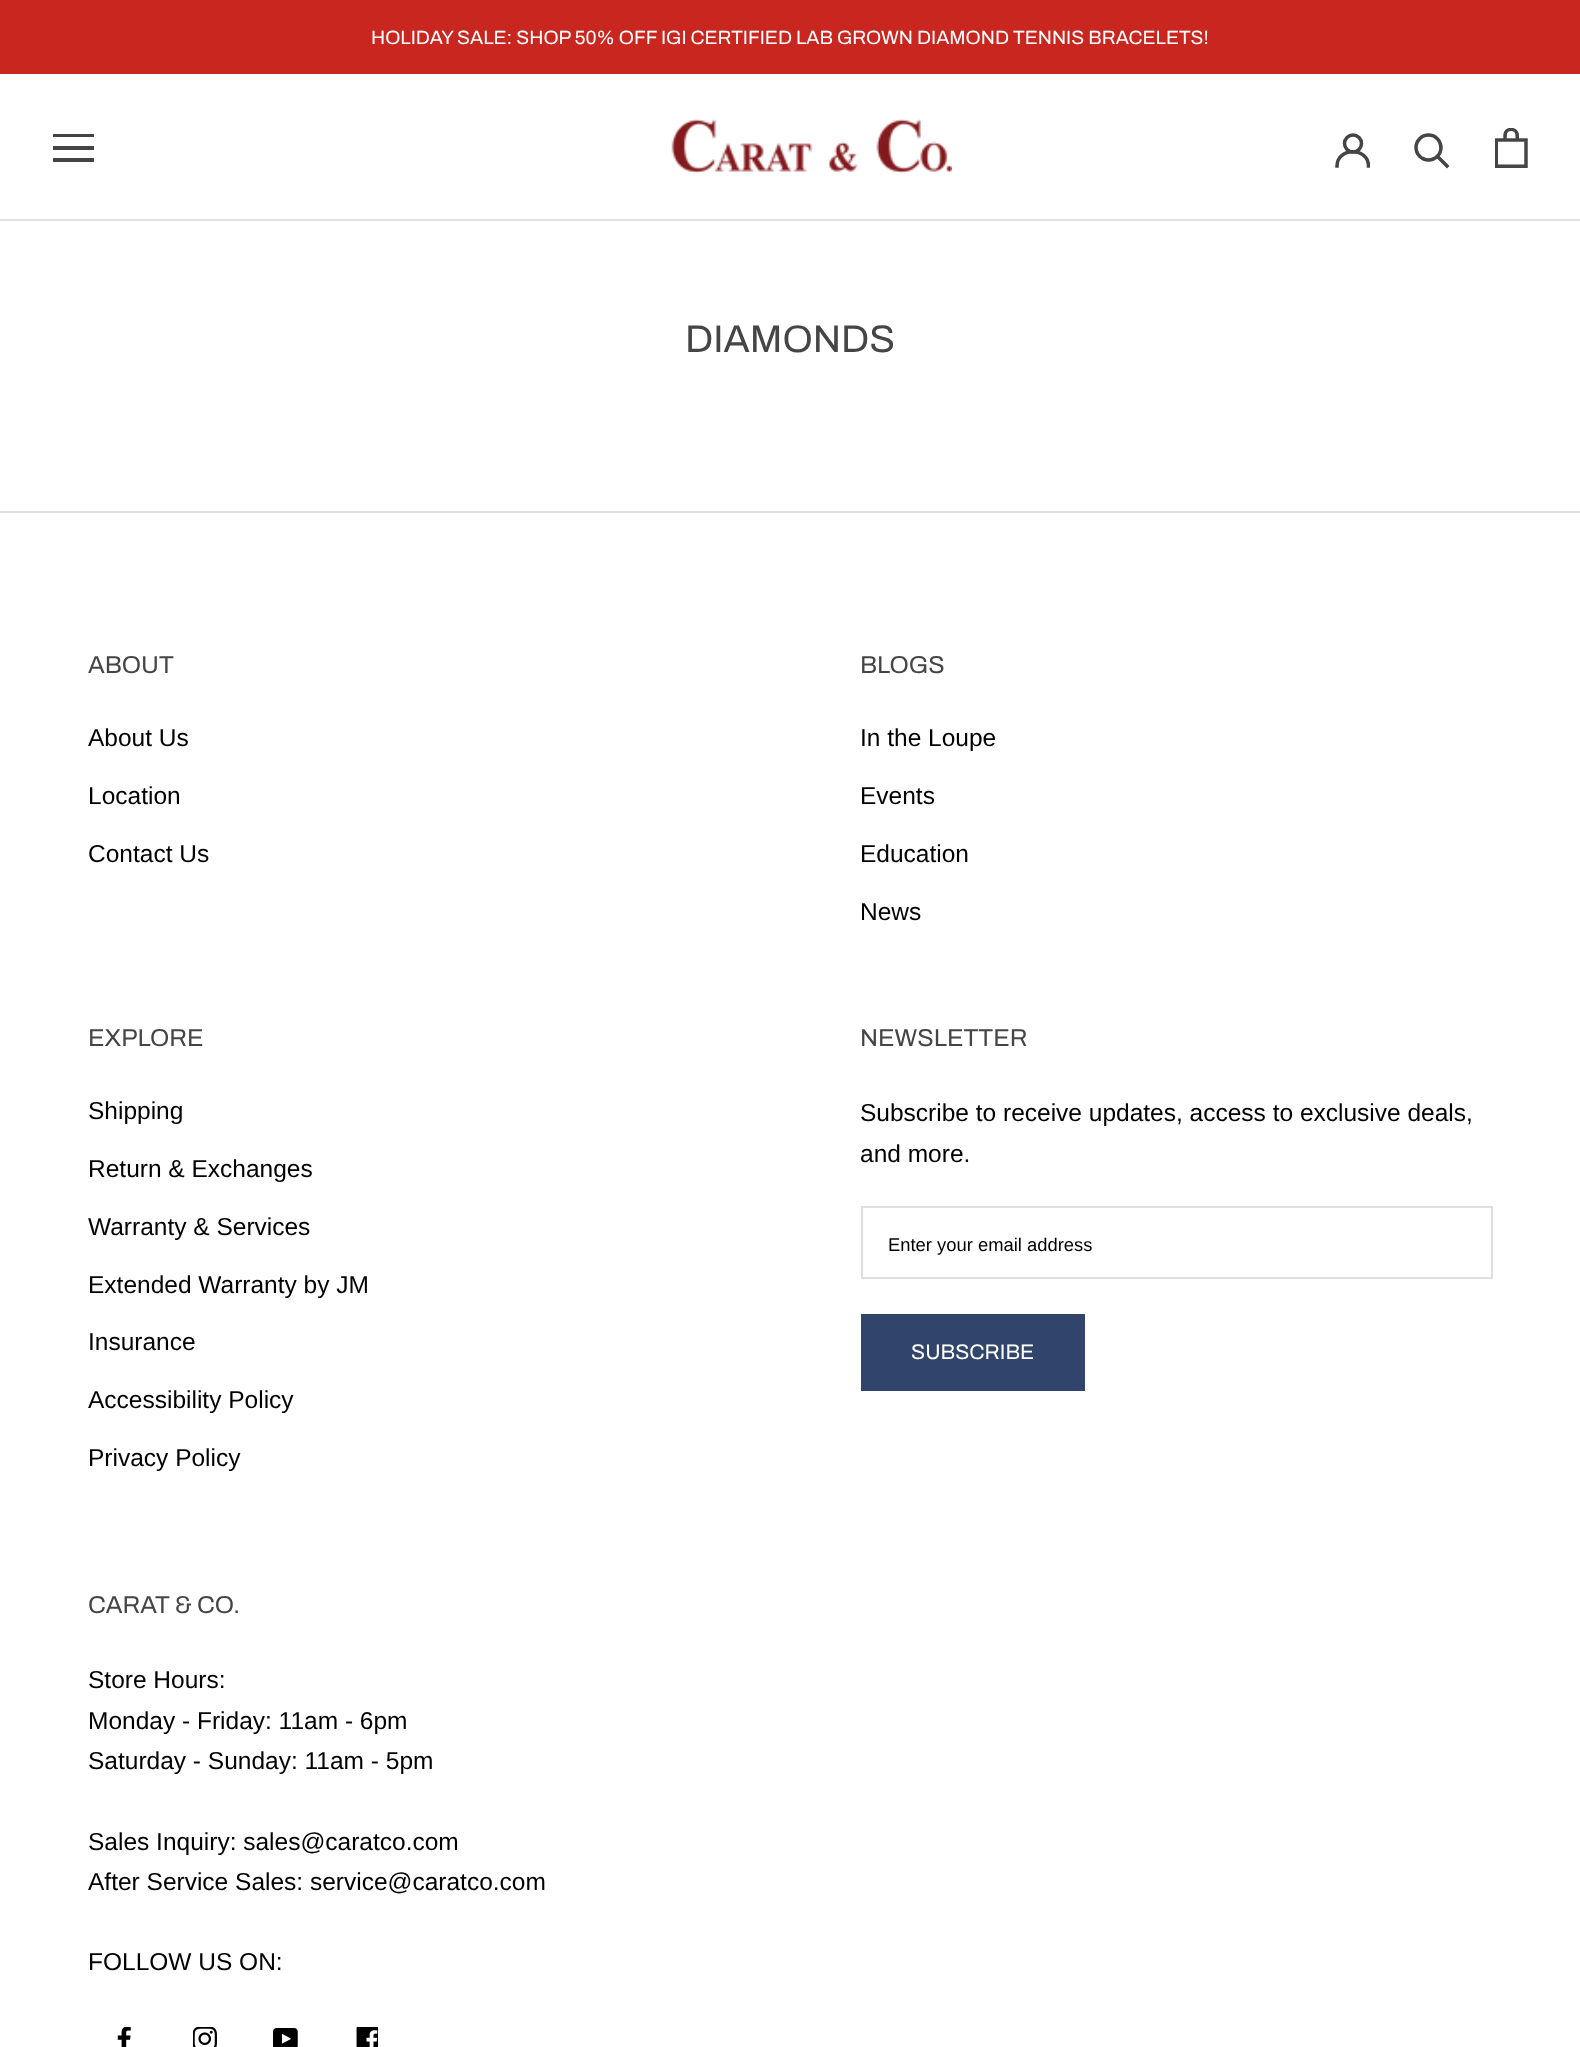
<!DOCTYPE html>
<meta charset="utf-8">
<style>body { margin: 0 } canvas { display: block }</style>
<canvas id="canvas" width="1580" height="2047"></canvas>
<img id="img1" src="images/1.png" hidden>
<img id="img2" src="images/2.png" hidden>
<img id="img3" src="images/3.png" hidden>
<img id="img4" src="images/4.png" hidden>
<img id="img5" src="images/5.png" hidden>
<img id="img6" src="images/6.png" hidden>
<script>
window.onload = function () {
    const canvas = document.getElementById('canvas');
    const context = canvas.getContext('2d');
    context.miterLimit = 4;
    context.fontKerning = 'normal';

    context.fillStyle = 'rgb(255, 255, 255)';
    context.fillRect(0, 0, 1580, 2047);
    context.fillStyle = 'rgb(202, 38, 32)';
    context.fillRect(0, 0, 1580, 74);
    context.fillStyle = 'rgb(227, 227, 227)';
    context.fillRect(0, 219, 1580, 2);
    context.save();
    context.beginPath();
    context.rect(53, 133, 42, 30);
    context.clip();
    context.fillStyle = 'rgb(69, 69, 69)';
    context.beginPath();
    context.moveTo(52, 162);
    context.lineTo(52, 158);
    context.lineTo(94, 158);
    context.lineTo(94, 162);
    context.closePath();
    context.moveTo(52, 146);
    context.lineTo(94, 146);
    context.lineTo(94, 150);
    context.lineTo(52, 150);
    context.closePath();
    context.moveTo(52, 134);
    context.lineTo(94, 134);
    context.lineTo(94, 137);
    context.lineTo(52, 137);
    context.closePath();
    context.fill();
    context.restore();
    context.drawImage(document.getElementById('img1'), 671, 118, 281, 56);
    context.save();
    context.beginPath();
    context.rect(1335, 133, 35, 35);
    context.clip();
    context.beginPath();
    context.moveTo(1337, 166);
    context.bezierCurveTo(1337, 147, 1368.5, 147, 1368.5, 166);
    context.strokeStyle = 'rgb(69, 69, 69)';
    context.lineWidth = 3.5;
    context.lineCap = 'square';
    context.stroke();
    context.restore();
    context.beginPath();
    context.arc(1353, 143.5, 8.5, 0, 2 * Math.PI);
    context.strokeStyle = 'rgb(69, 69, 69)';
    context.lineWidth = 3.5;
    context.stroke();
    context.beginPath();
    context.moveTo(1447, 166);
    context.lineTo(1437.5, 156.5);
    context.lineCap = 'square';
    context.stroke();
    context.beginPath();
    context.arc(1428.5, 147.5, 12.5, 0, 2 * Math.PI);
    context.stroke();
    context.drawImage(document.getElementById('img2'), 1495, 128, 33, 40);
    context.fillStyle = 'rgb(222, 222, 222)';
    context.fillRect(0, 511, 1580, 2);
    context.strokeStyle = 'rgb(222, 222, 222)';
    context.lineWidth = 2;
    context.strokeRect(862, 1207, 630, 71);
    context.strokeStyle = 'rgb(49, 69, 108)';
    context.strokeRect(862, 1315, 222, 75);
    context.fillStyle = 'rgb(49, 69, 108)';
    context.fillRect(863, 1316, 220, 73);
    context.drawImage(document.getElementById('img3'), 117, 2027, 14, 20);
    context.drawImage(document.getElementById('img4'), 193, 2027, 24, 20);
    context.drawImage(document.getElementById('img5'), 273, 2028, 25, 19);
    context.drawImage(document.getElementById('img6'), 356, 2027, 22, 20);
    context.font = '19.25px Archivo';
    context.fillStyle = 'rgb(255, 255, 255)';
    context.fillText('HOLIDAY SALE: SHOP 50% OFF IGI CERTIFIED LAB GROWN DIAMOND TENNIS BRACELETS!', 371, 44);
    context.font = '38.5px Archivo';
    context.fillStyle = 'rgb(69, 69, 69)';
    context.fillText('DIAMONDS', 685, 352);
    context.font = '24.5px Archivo';
    context.fillText('ABOUT', 88, 673);
    context.font = '24.5px Arimo';
    context.fillStyle = 'rgb(0, 0, 0)';
    context.fillText('About Us', 88, 746);
    context.fillText('Location', 88, 804);
    context.fillText('Contact Us', 88, 862);
    context.font = '24.5px Archivo';
    context.fillStyle = 'rgb(69, 69, 69)';
    context.fillText('BLOGS', 860, 673);
    context.font = '24.5px Arimo';
    context.fillStyle = 'rgb(0, 0, 0)';
    context.fillText('In the Loupe', 860, 746);
    context.fillText('Events', 860, 804);
    context.fillText('Education', 860, 862);
    context.fillText('News', 860, 920);
    context.font = '24.5px Archivo';
    context.fillStyle = 'rgb(69, 69, 69)';
    context.fillText('EXPLORE', 88, 1046);
    context.font = '24.5px Arimo';
    context.fillStyle = 'rgb(0, 0, 0)';
    context.fillText('Shipping', 88, 1119);
    context.fillText('Return & Exchanges', 88, 1177);
    context.fillText('Warranty & Services', 88, 1235);
    context.fillText('Extended Warranty by JM', 88, 1293);
    context.fillText('Insurance', 88, 1350);
    context.fillText('Accessibility Policy', 88, 1408);
    context.fillText('Privacy Policy', 88, 1466);
    context.font = '24.5px Archivo';
    context.fillStyle = 'rgb(69, 69, 69)';
    context.fillText('NEWSLETTER', 860, 1046);
    context.font = '24.5px Arimo';
    context.fillStyle = 'rgb(0, 0, 0)';
    context.fillText('Subscribe to receive updates, access to exclusive deals,', 860, 1121);
    context.fillText('and more.', 860, 1162);
    context.font = '18.4px Arimo';
    context.fillText('Enter your email address', 888, 1251);
    context.font = '21px Archivo';
    context.fillStyle = 'rgb(255, 255, 255)';
    context.fillText('SUBSCRIBE', 911, 1359);
    context.font = '24.5px Archivo';
    context.fillStyle = 'rgb(69, 69, 69)';
    context.fillText('CARAT & CO.', 88, 1613);
    context.font = '24.5px Arimo';
    context.fillStyle = 'rgb(0, 0, 0)';
    context.fillText('Store Hours:', 88, 1688);
    context.fillText('Monday - Friday: 11am - 6pm', 88, 1729);
    context.fillText('Saturday - Sunday: 11am - 5pm', 88, 1769);
    context.fillText('Sales Inquiry: sales@caratco.com', 88, 1850);
    context.fillText('After Service Sales: service@caratco.com', 88, 1890);
    context.fillText('FOLLOW US ON:', 88, 1970);
};
</script>
